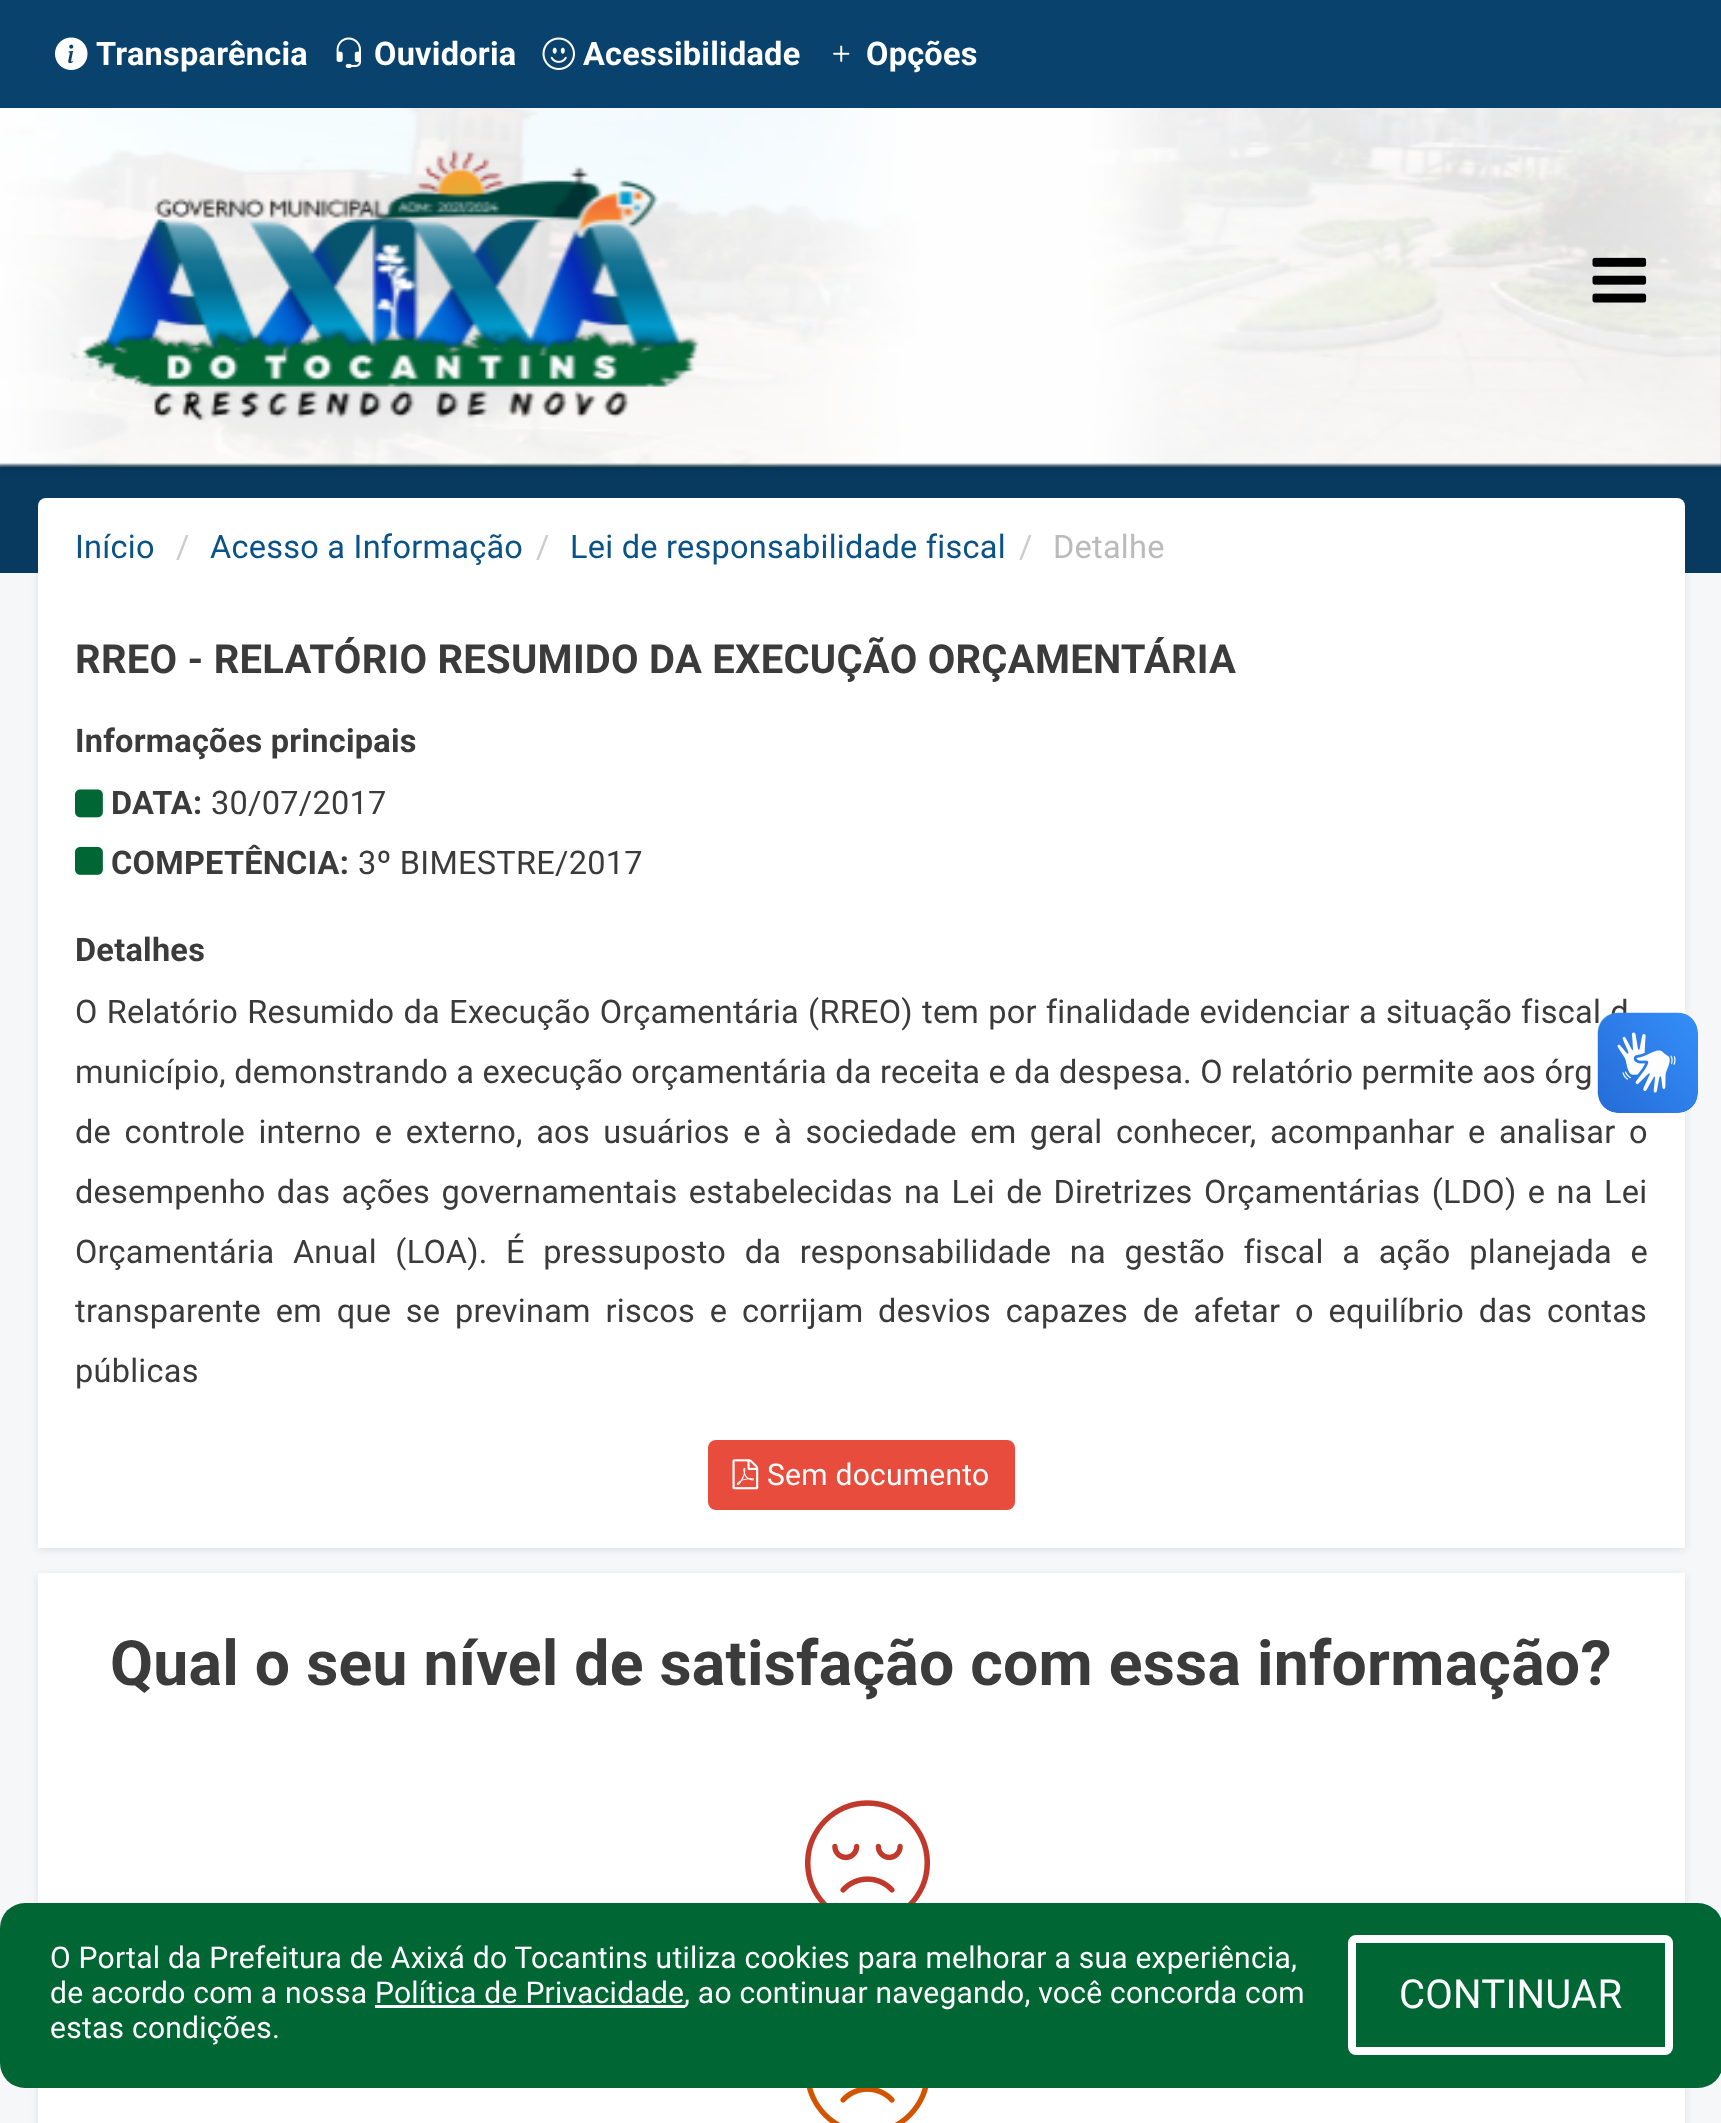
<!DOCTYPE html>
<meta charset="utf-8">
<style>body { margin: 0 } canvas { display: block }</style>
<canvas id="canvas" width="1721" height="2123"></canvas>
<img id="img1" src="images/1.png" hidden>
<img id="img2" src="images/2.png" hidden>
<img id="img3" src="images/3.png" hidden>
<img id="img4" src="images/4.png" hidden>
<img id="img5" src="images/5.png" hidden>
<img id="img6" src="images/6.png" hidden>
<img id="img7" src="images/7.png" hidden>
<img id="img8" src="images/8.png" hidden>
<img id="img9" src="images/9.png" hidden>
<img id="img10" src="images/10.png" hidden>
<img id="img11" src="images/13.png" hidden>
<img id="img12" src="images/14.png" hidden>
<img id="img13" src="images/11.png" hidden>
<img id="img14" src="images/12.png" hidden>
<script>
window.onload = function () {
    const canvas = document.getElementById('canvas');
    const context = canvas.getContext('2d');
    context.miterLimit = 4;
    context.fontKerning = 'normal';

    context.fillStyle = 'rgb(246, 247, 248)';
    context.fillRect(0, 0, 1721, 2123);
    context.fillStyle = 'rgba(3, 0, 71, 0.09)';
    context.filter = 'blur(4px)';
    context.beginPath();
    context.rect(38, 500, 1647, 1050);
    context.fill();
    context.filter = 'none';
    context.fillStyle = 'rgb(8, 58, 96)';
    context.fillRect(0, 335, 1721, 238);
    context.fillStyle = 'rgb(0, 102, 52)';
    context.fillRect(75, 463, 703, 2);
    context.fillStyle = 'rgba(0, 0, 0, 0.3)';
    context.filter = 'blur(2.5px)';
    context.beginPath();
    context.rect(0, 3, 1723, 465);
    context.fill();
    context.filter = 'none';
    context.drawImage(document.getElementById('img1'), 0, 108, 1721, 360);
    context.fillStyle = 'rgb(9, 66, 108)';
    context.fillRect(0, 0, 1721, 108);
    context.drawImage(document.getElementById('img2'), 55, 37, 33, 33);
    context.drawImage(document.getElementById('img3'), 336, 37, 25, 31);
    context.drawImage(document.getElementById('img4'), 542, 37, 33, 33);
    context.drawImage(document.getElementById('img5'), 833, 45, 17, 17);
    context.drawImage(document.getElementById('img6'), 70, 149, 629, 272);
    context.drawImage(document.getElementById('img7'), 1592, 257, 55, 46);
    context.fillStyle = 'rgb(255, 255, 255)';
    context.fillRect(38, 590, 1647, 958);
    context.beginPath();
    context.roundRect(38, 498, 1647, 100, 8);
    context.fill();
    context.drawImage(document.getElementById('img8'), 75, 789, 28, 29);
    context.drawImage(document.getElementById('img9'), 75, 846, 28, 29);
    context.fillStyle = 'rgb(231, 76, 60)';
    context.beginPath();
    context.roundRect(708, 1440, 307, 70, 8);
    context.fill();
    context.drawImage(document.getElementById('img10'), 732, 1459, 27, 31);
    context.fillStyle = 'rgba(3, 0, 71, 0.09)';
    context.filter = 'blur(4px)';
    context.beginPath();
    context.rect(38, 1575, 1647, 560);
    context.fill();
    context.filter = 'none';
    context.fillStyle = 'rgb(255, 255, 255)';
    context.fillRect(38, 1573, 1647, 550);
    context.drawImage(document.getElementById('img11'), 805, 1800, 125, 103);
    context.drawImage(document.getElementById('img12'), 806, 2088, 123, 35);
    context.fillStyle = 'rgb(0, 102, 52)';
    context.beginPath();
    context.roundRect(0, 1903, 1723, 185, 25);
    context.fill();
    context.fillStyle = 'rgb(255, 255, 255)';
    context.fillRect(375, 2005, 310, 3);
    context.beginPath();
    context.roundRect(1352, 1939, 317, 112, 4);
    context.strokeStyle = 'rgb(255, 255, 255)';
    context.lineWidth = 8;
    context.stroke();
    context.letterSpacing = '0.25px';
    context.font = 'bold 32.5px Roboto';
    context.fillText('Transparência', 96, 65);
    context.fillText('Ouvidoria', 374, 65);
    context.fillText('Acessibilidade', 583, 65);
    context.fillText('Opções', 866, 65);
    context.font = '32.5px Roboto';
    context.fillStyle = 'rgb(11, 82, 134)';
    context.fillText('Início', 75, 558);
    context.fillStyle = 'rgb(204, 204, 204)';
    context.fillText('/', 176, 558);
    context.fillStyle = 'rgb(11, 82, 134)';
    context.fillText('Acesso a Informação', 210, 558);
    context.fillStyle = 'rgb(204, 204, 204)';
    context.fillText('/', 536, 558);
    context.fillStyle = 'rgb(11, 82, 134)';
    context.fillText('Lei de responsabilidade fiscal', 570, 558);
    context.fillStyle = 'rgb(204, 204, 204)';
    context.fillText('/', 1019, 558);
    context.fillStyle = 'rgb(187, 187, 187)';
    context.fillText('Detalhe', 1053, 558);
    context.font = 'bold 40px Roboto';
    context.fillStyle = 'rgb(59, 59, 59)';
    context.fillText('RREO - RELATÓRIO RESUMIDO DA EXECUÇÃO ORÇAMENTÁRIA', 75, 673);
    context.font = 'bold 32.5px Roboto';
    context.fillText('Informações principais', 75, 752);
    context.fillText('DATA:', 111, 814);
    context.font = '32.5px Roboto';
    context.fillText('30/07/2017', 211, 814);
    context.font = 'bold 32.5px Roboto';
    context.fillText('COMPETÊNCIA:', 111, 874);
    context.font = '32.5px Roboto';
    context.fillText('3º BIMESTRE/2017', 358, 874);
    context.font = 'bold 32.5px Roboto';
    context.fillText('Detalhes', 75, 961);
    context.wordSpacing = '0.75px';
    context.font = '32.5px Roboto';
    context.fillText('O Relatório Resumido da Execução Orçamentária (RREO) tem por finalidade evidenciar a situação fiscal d', 75, 1023);
    context.wordSpacing = '0px';
    context.fillText('município, demonstrando a execução orçamentária da receita e da despesa. O relatório permite aos órg', 75, 1083);
    context.wordSpacing = '5.1px';
    context.fillText('de controle interno e externo, aos usuários e à sociedade em geral conhecer, acompanhar e analisar o', 75, 1143);
    context.wordSpacing = '3px';
    context.fillText('desempenho das ações governamentais estabelecidas na Lei de Diretrizes Orçamentárias (LDO) e na Lei', 75, 1203);
    context.wordSpacing = '10.25px';
    context.fillText('Orçamentária Anual (LOA).', 75, 1263);
    context.fillText('É pressuposto da responsabilidade na gestão fiscal a ação planejada e', 506, 1263);
    context.wordSpacing = '6.4px';
    context.fillText('transparente em que se previnam riscos e corrijam desvios capazes de afetar o equilíbrio das contas', 75, 1322);
    context.wordSpacing = '0px';
    context.fillText('públicas', 75, 1382);
    context.font = '30px Roboto';
    context.fillStyle = 'rgb(255, 255, 255)';
    context.fillText('Sem documento', 767, 1485);
    context.drawImage(document.getElementById('img13'), 1597, 1012, 101, 101);
    context.drawImage(document.getElementById('img14'), 1598, 1013, 100, 100);
    context.font = 'bold 62.5px Roboto';
    context.fillStyle = 'rgb(59, 59, 59)';
    context.fillText('Qual o seu nível de satisfação com essa informação?', 110, 1685);
    context.font = '30px Roboto';
    context.fillStyle = 'rgb(255, 255, 255)';
    context.fillText('O Portal da Prefeitura de Axixá do Tocantins utiliza cookies para melhorar a sua experiência,', 50, 1968);
    context.fillText('de acordo com a nossa Política de Privacidade', 50, 2003);
    context.fillText(', ao continuar navegando, você concorda com', 684, 2003);
    context.fillText('estas condições.', 50, 2038);
    context.font = '40px Roboto';
    context.fillText('CONTINUAR', 1399, 2008);
};
</script>
